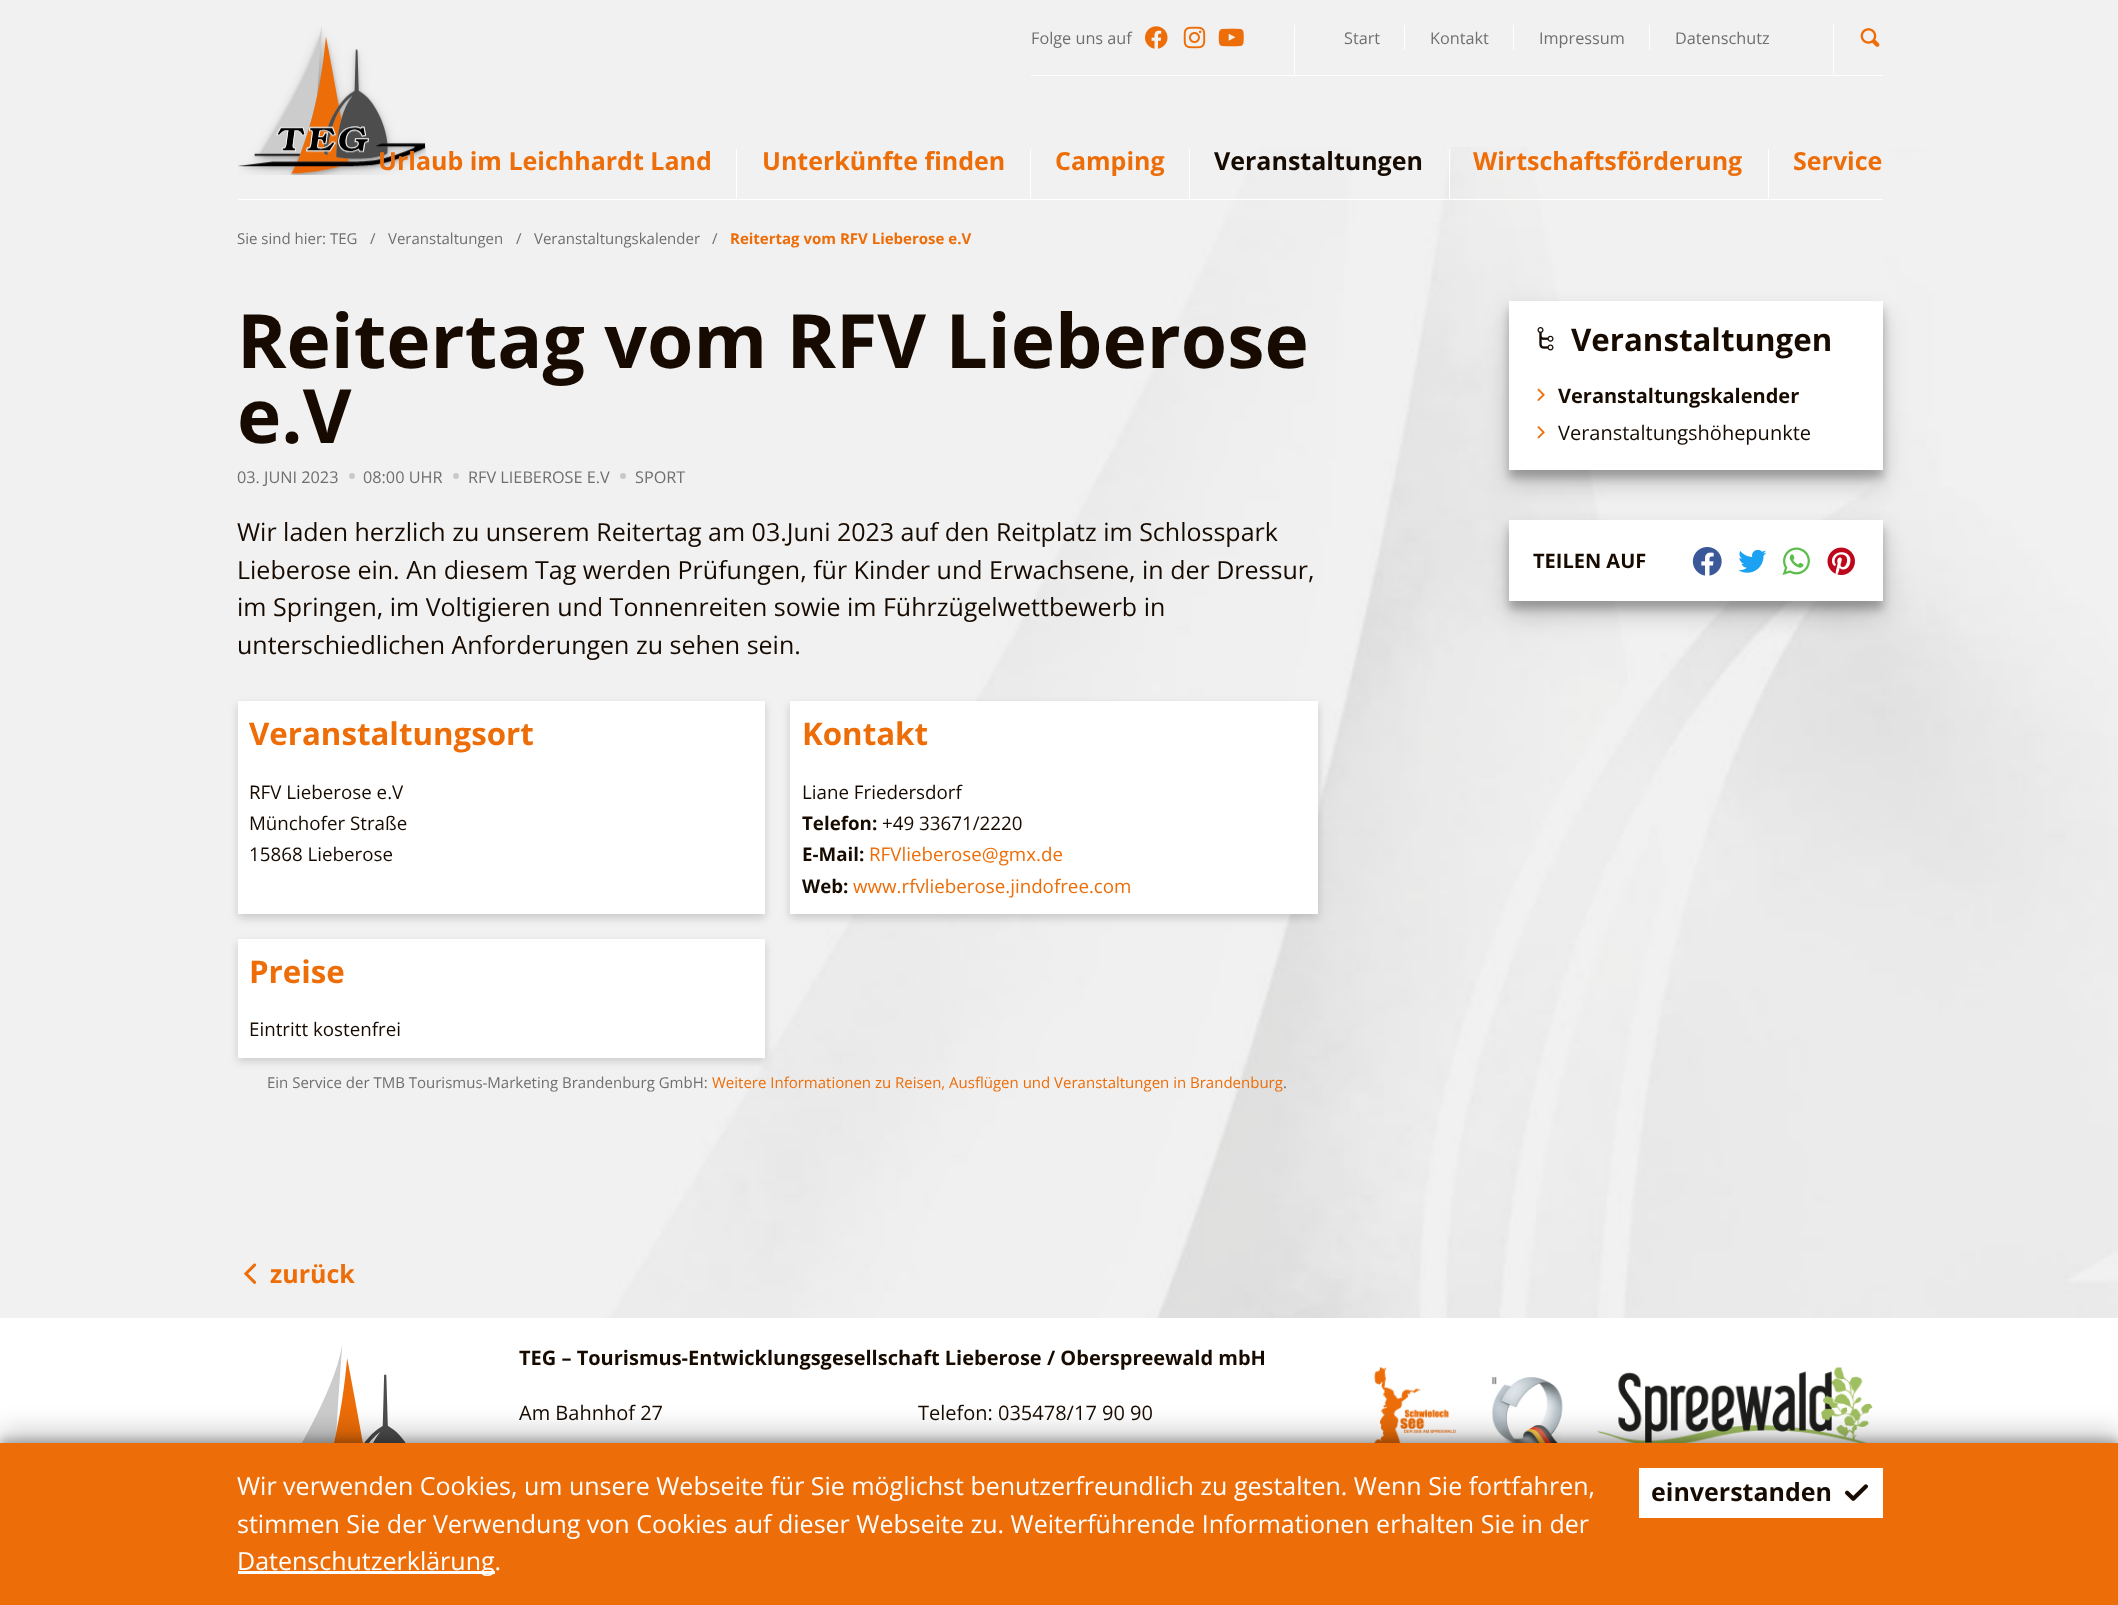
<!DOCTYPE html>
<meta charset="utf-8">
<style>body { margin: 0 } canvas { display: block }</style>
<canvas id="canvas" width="2118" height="1605"></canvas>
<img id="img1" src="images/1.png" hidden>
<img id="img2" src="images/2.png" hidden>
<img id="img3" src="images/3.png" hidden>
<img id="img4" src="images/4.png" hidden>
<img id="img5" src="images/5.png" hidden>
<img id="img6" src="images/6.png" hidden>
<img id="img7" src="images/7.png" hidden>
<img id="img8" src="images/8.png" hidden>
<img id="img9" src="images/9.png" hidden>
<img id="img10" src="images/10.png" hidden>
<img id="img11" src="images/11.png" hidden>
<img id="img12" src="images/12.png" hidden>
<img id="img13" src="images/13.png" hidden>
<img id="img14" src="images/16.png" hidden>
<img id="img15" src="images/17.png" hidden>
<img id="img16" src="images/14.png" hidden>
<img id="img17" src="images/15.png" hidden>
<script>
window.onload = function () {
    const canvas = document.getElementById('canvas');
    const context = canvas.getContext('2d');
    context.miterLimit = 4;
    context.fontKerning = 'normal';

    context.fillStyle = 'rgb(241, 241, 241)';
    context.fillRect(0, 0, 2118, 1605);
    context.drawImage(document.getElementById('img1'), 493, 147, 1625, 1171);
    context.fillStyle = 'rgb(255, 255, 255)';
    context.fillRect(1031, 75, 852, 1);
    context.drawImage(document.getElementById('img2'), 1145, 26, 23, 23);
    context.drawImage(document.getElementById('img3'), 1183, 26, 23, 23);
    context.drawImage(document.getElementById('img4'), 1218, 28, 26, 19);
    context.fillRect(1294, 25, 1, 50);
    context.fillRect(1404, 25, 1, 25);
    context.fillRect(1513, 25, 1, 25);
    context.fillRect(1649, 25, 1, 25);
    context.fillRect(1833, 24, 1, 50);
    context.drawImage(document.getElementById('img5'), 1860, 28, 20, 19);
    context.fillRect(238, 199, 1645, 1);
    context.drawImage(document.getElementById('img6'), 238, 25, 188, 150);
    context.fillRect(736, 149, 1, 50);
    context.fillRect(1030, 149, 1, 50);
    context.fillRect(1189, 149, 1, 50);
    context.fillRect(1449, 149, 1, 50);
    context.fillRect(1768, 149, 1, 50);
    context.fillStyle = 'rgb(200, 200, 200)';
    context.beginPath();
    context.arc(352, 476, 3, 0, 2 * Math.PI);
    context.fill();
    context.beginPath();
    context.arc(456, 476, 3, 0, 2 * Math.PI);
    context.fill();
    context.beginPath();
    context.arc(623, 476, 3, 0, 2 * Math.PI);
    context.fill();
    context.fillStyle = 'rgba(0, 0, 0, 0.16)';
    context.filter = 'blur(4px)';
    context.beginPath();
    context.rect(238, 705, 527, 213);
    context.fill();
    context.filter = 'none';
    context.fillStyle = 'rgb(255, 255, 255)';
    context.fillRect(238, 701, 527, 213);
    context.fillStyle = 'rgba(0, 0, 0, 0.16)';
    context.filter = 'blur(4px)';
    context.beginPath();
    context.rect(790, 705, 528, 213);
    context.fill();
    context.filter = 'none';
    context.fillStyle = 'rgb(255, 255, 255)';
    context.fillRect(790, 701, 528, 213);
    context.fillStyle = 'rgba(0, 0, 0, 0.16)';
    context.filter = 'blur(4px)';
    context.beginPath();
    context.rect(238, 943, 527, 118);
    context.fill();
    context.filter = 'none';
    context.fillStyle = 'rgb(255, 255, 255)';
    context.fillRect(238, 939, 527, 119);
    context.fillStyle = 'rgba(0, 0, 0, 0.23)';
    context.filter = 'blur(4px)';
    context.beginPath();
    context.rect(1509, 309, 374, 169);
    context.fill();
    context.filter = 'none';
    context.fillStyle = 'rgba(0, 0, 0, 0.19)';
    context.filter = 'blur(12.5px)';
    context.beginPath();
    context.rect(1509, 314, 374, 169);
    context.fill();
    context.filter = 'none';
    context.fillStyle = 'rgb(255, 255, 255)';
    context.fillRect(1509, 301, 374, 169);
    context.drawImage(document.getElementById('img7'), 1537, 327, 17, 24);
    context.drawImage(document.getElementById('img8'), 1537, 388, 8, 13);
    context.drawImage(document.getElementById('img9'), 1537, 426, 8, 13);
    context.fillStyle = 'rgba(0, 0, 0, 0.23)';
    context.filter = 'blur(4px)';
    context.beginPath();
    context.rect(1509, 528, 374, 81);
    context.fill();
    context.filter = 'none';
    context.fillStyle = 'rgba(0, 0, 0, 0.19)';
    context.filter = 'blur(12.5px)';
    context.beginPath();
    context.rect(1509, 533, 374, 81);
    context.fill();
    context.filter = 'none';
    context.fillStyle = 'rgb(255, 255, 255)';
    context.fillRect(1509, 520, 374, 81);
    context.drawImage(document.getElementById('img10'), 1692, 547, 30, 29);
    context.drawImage(document.getElementById('img11'), 1738, 549, 29, 24);
    context.drawImage(document.getElementById('img12'), 1782, 547, 28, 29);
    context.drawImage(document.getElementById('img13'), 1827, 547, 28, 28);
    context.fillRect(0, 1318, 2118, 125);
    context.drawImage(document.getElementById('img14'), 302, 1344, 104, 99);
    context.drawImage(document.getElementById('img15'), 1374, 1367, 499, 76);
    context.fillStyle = 'rgba(0, 0, 0, 0.23)';
    context.filter = 'blur(4px)';
    context.beginPath();
    context.rect(0, 1439, 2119, 162);
    context.fill();
    context.filter = 'none';
    context.fillStyle = 'rgba(0, 0, 0, 0.19)';
    context.filter = 'blur(12.5px)';
    context.beginPath();
    context.rect(0, 1430, 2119, 163);
    context.fill();
    context.filter = 'none';
    context.fillStyle = 'rgb(237, 109, 8)';
    context.fillRect(0, 1443, 2118, 162);
    context.fillStyle = 'rgb(255, 255, 255)';
    context.fillRect(1639, 1468, 244, 50);
    context.drawImage(document.getElementById('img16'), 1845, 1484, 23, 17);
    context.fillRect(238, 1571, 257, 3);
    context.drawImage(document.getElementById('img17'), 243, 1263, 14, 21);
    context.font = '16.25px Open Sans';
    context.fillStyle = 'rgb(112, 111, 111)';
    context.fillText('Folge uns auf', 1031, 44);
    context.fillText('Start', 1344, 44);
    context.fillText('Kontakt', 1430, 44);
    context.fillText('Impressum', 1539, 44);
    context.fillText('Datenschutz', 1675, 44);
    context.font = 'bold 25px Open Sans';
    context.fillStyle = 'rgb(237, 109, 8)';
    context.fillText('Urlaub im Leichhardt Land', 378, 170);
    context.fillText('Unterkünfte finden', 762, 170);
    context.fillText('Camping', 1055, 170);
    context.fillStyle = 'rgb(23, 11, 1)';
    context.fillText('Veranstaltungen', 1214, 170);
    context.fillStyle = 'rgb(237, 109, 8)';
    context.fillText('Wirtschaftsförderung', 1473, 170);
    context.fillText('Service', 1793, 170);
    context.font = '15px Open Sans';
    context.fillStyle = 'rgb(112, 111, 111)';
    context.fillText('Sie sind hier: TEG', 237, 244);
    context.fillText('/', 370, 244);
    context.fillText('Veranstaltungen', 388, 244);
    context.fillText('/', 516, 244);
    context.fillText('Veranstaltungskalender', 534, 244);
    context.fillText('/', 712, 244);
    context.font = 'bold 15px Open Sans';
    context.fillStyle = 'rgb(237, 109, 8)';
    context.fillText('Reitertag vom RFV Lieberose e.V', 730, 244);
    context.font = 'bold 75px Open Sans';
    context.fillStyle = 'rgb(23, 11, 1)';
    context.fillText('Reitertag vom RFV Lieberose', 237, 368);
    context.fillText('e.V', 237, 443);
    context.font = '16.25px Open Sans';
    context.fillStyle = 'rgb(112, 111, 111)';
    context.fillText('03. JUNI 2023', 237, 483);
    context.fillText('08:00 UHR', 363, 483);
    context.fillText('RFV LIEBEROSE E.V', 468, 483);
    context.fillText('SPORT', 635, 483);
    context.font = '25px Open Sans';
    context.fillStyle = 'rgb(23, 11, 1)';
    context.fillText('Wir laden herzlich zu unserem Reitertag am 03.Juni 2023 auf den Reitplatz im Schlosspark', 237, 541);
    context.fillText('Lieberose ein. An diesem Tag werden Prüfungen, für Kinder und Erwachsene, in der Dressur,', 237, 579);
    context.fillText('im Springen, im Voltigieren und Tonnenreiten sowie im Führzügelwettbewerb in', 237, 616);
    context.fillText('unterschiedlichen Anforderungen zu sehen sein.', 237, 654);
    context.font = 'bold 31.25px Open Sans';
    context.fillStyle = 'rgb(237, 109, 8)';
    context.fillText('Veranstaltungsort', 249, 745);
    context.font = '18.75px Open Sans';
    context.fillStyle = 'rgb(23, 11, 1)';
    context.fillText('RFV Lieberose e.V', 249, 799);
    context.fillText('Münchofer Straße', 249, 830);
    context.fillText('15868 Lieberose', 249, 861);
    context.font = 'bold 31.25px Open Sans';
    context.fillStyle = 'rgb(237, 109, 8)';
    context.fillText('Kontakt', 802, 745);
    context.font = '18.75px Open Sans';
    context.fillStyle = 'rgb(23, 11, 1)';
    context.fillText('Liane Friedersdorf', 802, 799);
    context.font = 'bold 18.75px Open Sans';
    context.fillText('Telefon:', 802, 830);
    context.font = '18.75px Open Sans';
    context.fillText('+49 33671/2220', 882, 830);
    context.font = 'bold 18.75px Open Sans';
    context.fillText('E-Mail:', 802, 861);
    context.font = '18.75px Open Sans';
    context.fillStyle = 'rgb(237, 109, 8)';
    context.fillText('RFVlieberose@gmx.de', 869, 861);
    context.font = 'bold 18.75px Open Sans';
    context.fillStyle = 'rgb(23, 11, 1)';
    context.fillText('Web:', 802, 893);
    context.font = '18.75px Open Sans';
    context.fillStyle = 'rgb(237, 109, 8)';
    context.fillText('www.rfvlieberose.jindofree.com', 853, 893);
    context.font = 'bold 31.25px Open Sans';
    context.fillText('Preise', 249, 983);
    context.font = '18.75px Open Sans';
    context.fillStyle = 'rgb(23, 11, 1)';
    context.fillText('Eintritt kostenfrei', 249, 1036);
    context.font = '15px Open Sans';
    context.fillStyle = 'rgb(112, 111, 111)';
    context.fillText('Ein Service der TMB Tourismus-Marketing Brandenburg GmbH:', 267, 1088);
    context.fillStyle = 'rgb(237, 109, 8)';
    context.fillText('Weitere Informationen zu Reisen, Ausflügen und Veranstaltungen in Brandenburg', 712, 1088);
    context.fillStyle = 'rgb(112, 111, 111)';
    context.fillText('.', 1283, 1088);
    context.font = 'bold 31.25px Open Sans';
    context.fillStyle = 'rgb(23, 11, 1)';
    context.fillText('Veranstaltungen', 1571, 351);
    context.font = 'bold 20px Open Sans';
    context.fillText('Veranstaltungskalender', 1558, 403);
    context.font = '20px Open Sans';
    context.fillText('Veranstaltungshöhepunkte', 1558, 440);
    context.font = 'bold 20px Open Sans';
    context.fillText('TEILEN AUF', 1533, 568);
    context.font = '25px Open Sans';
    context.fillStyle = 'rgb(255, 255, 255)';
    context.fillText('Wir verwenden Cookies, um unsere Webseite für Sie möglichst benutzerfreundlich zu gestalten. Wenn Sie fortfahren,', 237, 1495);
    context.font = 'bold 25px Open Sans';
    context.fillStyle = 'rgb(23, 11, 1)';
    context.fillText('einverstanden', 1651, 1501);
    context.font = '25px Open Sans';
    context.fillStyle = 'rgb(255, 255, 255)';
    context.fillText('stimmen Sie der Verwendung von Cookies auf dieser Webseite zu. Weiterführende Informationen erhalten Sie in der', 237, 1533);
    context.fillText('Datenschutzerklärung.', 237, 1570);
    context.font = 'bold 25px Open Sans';
    context.fillStyle = 'rgb(237, 109, 8)';
    context.fillText('zurück', 270, 1283);
    context.font = 'bold 20px Open Sans';
    context.fillStyle = 'rgb(23, 11, 1)';
    context.fillText('TEG – Tourismus-Entwicklungsgesellschaft Lieberose / Oberspreewald mbH', 519, 1365);
    context.font = '20px Open Sans';
    context.fillText('Am Bahnhof 27', 519, 1420);
    context.fillText('Telefon: 035478/17 90 90', 918, 1420);
};
</script>
